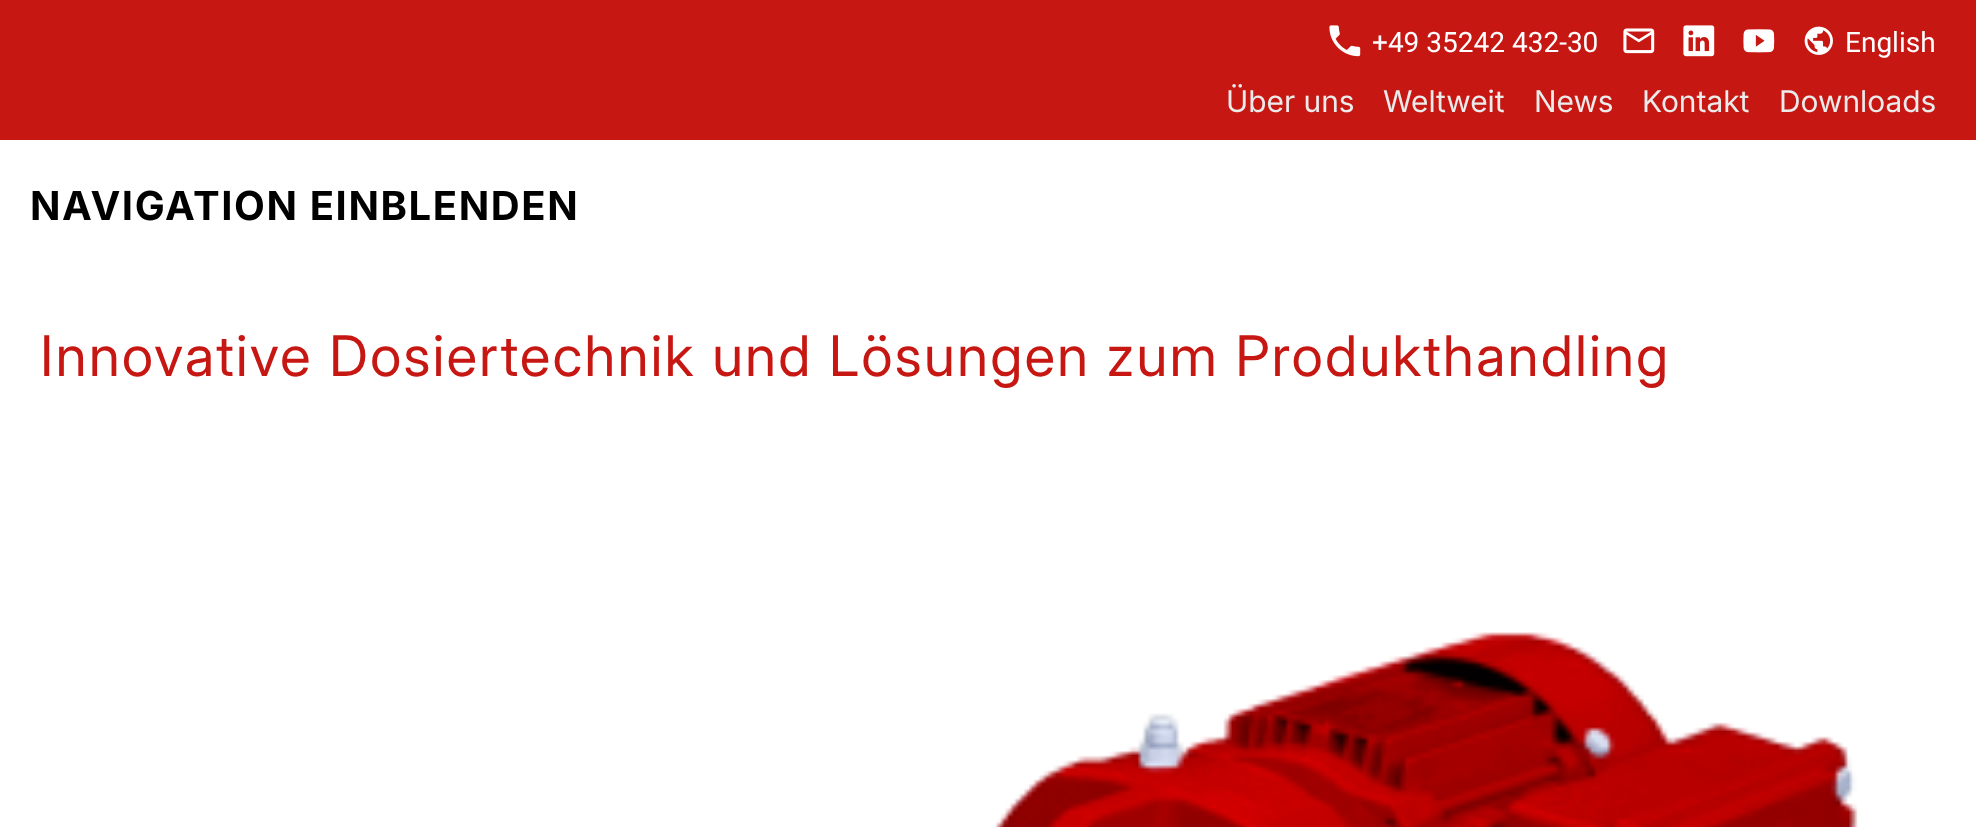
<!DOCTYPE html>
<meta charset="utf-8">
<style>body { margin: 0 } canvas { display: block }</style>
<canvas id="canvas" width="1976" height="827"></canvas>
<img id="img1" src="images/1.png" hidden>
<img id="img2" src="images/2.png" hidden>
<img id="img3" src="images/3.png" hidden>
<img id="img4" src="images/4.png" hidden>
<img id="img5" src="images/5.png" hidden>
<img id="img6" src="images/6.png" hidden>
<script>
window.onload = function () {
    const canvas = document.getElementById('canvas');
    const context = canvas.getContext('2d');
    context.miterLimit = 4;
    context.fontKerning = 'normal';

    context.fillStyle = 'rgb(255, 255, 255)';
    context.fillRect(0, 0, 1976, 827);
    context.fillStyle = 'rgb(199, 23, 18)';
    context.fillRect(0, 0, 1976, 140);
    context.drawImage(document.getElementById('img1'), 1329, 25, 32, 32);
    context.drawImage(document.getElementById('img2'), 1623, 28, 32, 26);
    context.drawImage(document.getElementById('img3'), 1683, 25, 32, 32);
    context.drawImage(document.getElementById('img4'), 1743, 29, 32, 24);
    context.drawImage(document.getElementById('img5'), 1804, 26, 29, 29);
    context.drawImage(document.getElementById('img6'), 995, 632, 863, 195);
    context.font = '28px Roboto';
    context.fillStyle = 'rgb(255, 255, 255)';
    context.fillText('+49 35242 432-30', 1372, 52);
    context.fillText('English', 1845, 52);
    context.font = '30px Inter';
    context.fillStyle = 'rgb(235, 235, 235)';
    context.fillText('Über uns', 1226, 112);
    context.fillText('Weltweit', 1383, 112);
    context.fillText('News', 1534, 112);
    context.fillText('Kontakt', 1642, 112);
    context.fillText('Downloads', 1779, 112);
    context.letterSpacing = '1.6px';
    context.font = 'bold 40px Inter';
    context.fillStyle = 'rgb(0, 0, 0)';
    context.fillText('NAVIGATION EINBLENDEN', 30, 220);
    context.letterSpacing = '2px';
    context.font = '56px "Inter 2"';
    context.fillStyle = 'rgb(199, 23, 18)';
    context.fillText('Innovative Dosiertechnik und Lösungen zum Produkthandling', 40, 376);
};
</script>
